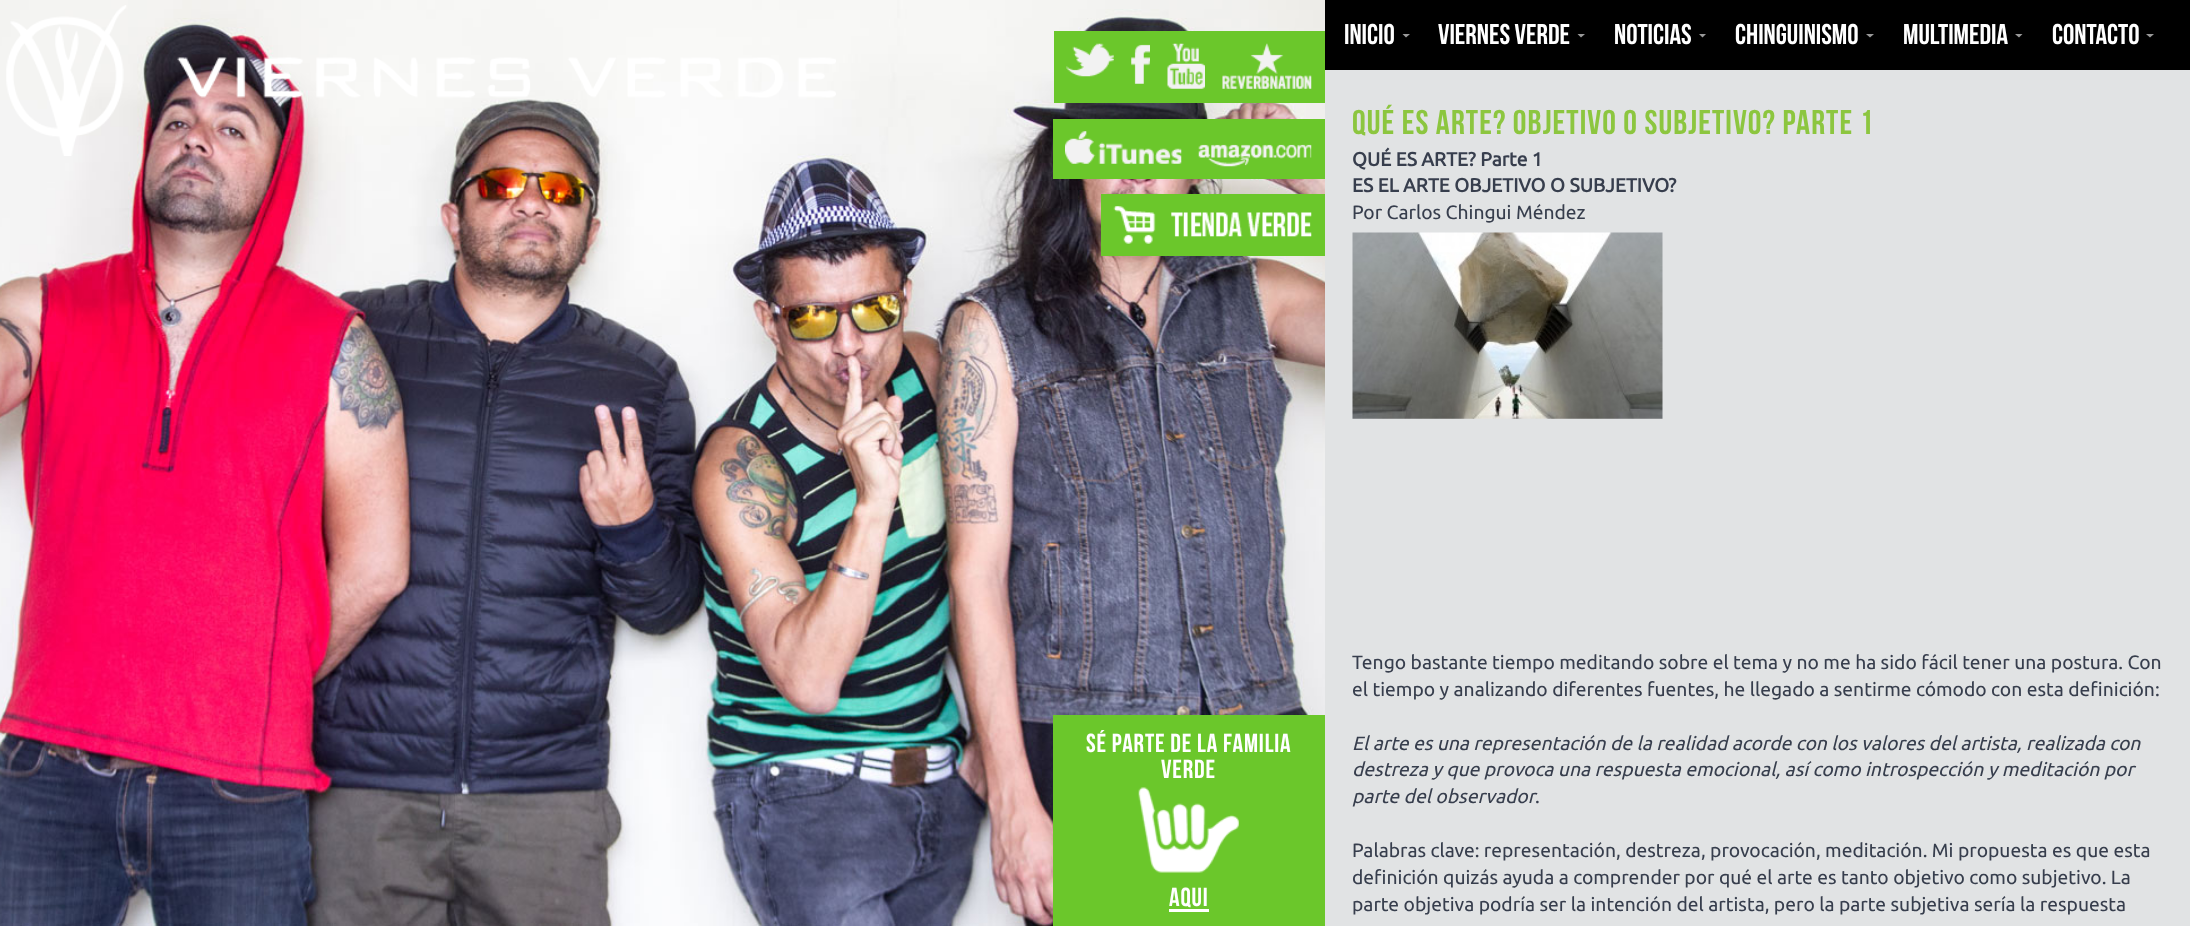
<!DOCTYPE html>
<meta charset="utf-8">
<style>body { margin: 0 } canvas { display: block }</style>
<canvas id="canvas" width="2190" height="926"></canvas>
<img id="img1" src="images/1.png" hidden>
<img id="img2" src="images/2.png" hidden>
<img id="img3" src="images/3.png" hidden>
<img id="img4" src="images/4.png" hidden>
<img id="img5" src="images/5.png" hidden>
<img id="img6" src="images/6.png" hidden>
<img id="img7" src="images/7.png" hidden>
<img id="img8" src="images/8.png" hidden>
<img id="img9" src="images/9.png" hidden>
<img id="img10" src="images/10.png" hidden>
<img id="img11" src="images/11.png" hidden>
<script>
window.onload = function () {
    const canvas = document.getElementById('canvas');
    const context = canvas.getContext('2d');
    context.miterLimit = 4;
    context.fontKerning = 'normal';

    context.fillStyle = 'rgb(0, 0, 0)';
    context.fillRect(0, 0, 2190, 926);
    context.drawImage(document.getElementById('img1'), 0, 0, 1325, 926);
    context.drawImage(document.getElementById('img2'), 6, 5, 830, 151);
    context.fillStyle = 'rgb(107, 199, 43)';
    context.fillRect(1054, 31, 271, 72);
    context.drawImage(document.getElementById('img3'), 1066, 43, 48, 34);
    context.drawImage(document.getElementById('img4'), 1131, 44, 19, 40);
    context.drawImage(document.getElementById('img5'), 1167, 43, 38, 46);
    context.drawImage(document.getElementById('img6'), 1222, 43, 90, 46);
    context.fillRect(1053, 119, 272, 60);
    context.drawImage(document.getElementById('img7'), 1065, 131, 117, 33);
    context.drawImage(document.getElementById('img8'), 1198, 144, 114, 23);
    context.fillRect(1101, 194, 224, 62);
    context.drawImage(document.getElementById('img9'), 1113, 206, 199, 38);
    context.fillRect(1053, 715, 272, 211);
    context.drawImage(document.getElementById('img10'), 1138, 787, 101, 86);
    context.fillStyle = 'rgb(255, 255, 255)';
    context.fillRect(1169, 909, 40, 3);
    context.fillStyle = 'rgb(153, 153, 153)';
    context.beginPath();
    context.moveTo(1402.5, 34);
    context.lineTo(1410, 34);
    context.lineTo(1406, 37.5);
    context.closePath();
    context.fill();
    context.beginPath();
    context.moveTo(1577.5, 34);
    context.lineTo(1585, 34);
    context.lineTo(1581, 37.5);
    context.closePath();
    context.fill();
    context.beginPath();
    context.moveTo(1699, 34);
    context.lineTo(1706, 34);
    context.lineTo(1702.5, 37.5);
    context.closePath();
    context.fill();
    context.beginPath();
    context.moveTo(1866, 34);
    context.lineTo(1874, 34);
    context.lineTo(1870, 37.5);
    context.closePath();
    context.fill();
    context.beginPath();
    context.moveTo(2015, 34);
    context.lineTo(2022.5, 34);
    context.lineTo(2019, 37.5);
    context.closePath();
    context.fill();
    context.beginPath();
    context.moveTo(2146, 34);
    context.lineTo(2154, 34);
    context.lineTo(2150, 37.5);
    context.closePath();
    context.fill();
    context.fillStyle = 'rgb(225, 227, 228)';
    context.fillRect(1325, 70, 865, 856);
    context.drawImage(document.getElementById('img11'), 1352, 232, 311, 187);
    context.letterSpacing = '0.85px';
    context.font = '26px Bebas Neue';
    context.fillStyle = 'rgb(255, 255, 255)';
    context.fillText('Sé parte de la familia', 1086, 752);
    context.fillText('verde', 1161, 778);
    context.fillText('aqui', 1169, 906);
    context.letterSpacing = '0px';
    context.font = '28.5px Bebas Neue';
    context.fillText('Inicio', 1344, 44);
    context.fillText('Viernes Verde', 1438, 44);
    context.fillText('Noticias', 1614, 44);
    context.fillText('Chinguinismo', 1735, 44);
    context.fillText('Multimedia', 1903, 44);
    context.fillText('Contacto', 2052, 44);
    context.letterSpacing = '1.1px';
    context.font = '34.4px Bebas Neue';
    context.fillStyle = 'rgb(140, 198, 63)';
    context.fillText('Qué es Arte? Objetivo o Subjetivo? Parte 1', 1352, 134);
    context.letterSpacing = '0px';
    context.font = 'bold 19.25px Ubuntu';
    context.fillStyle = 'rgb(55, 62, 77)';
    context.fillText('QUÉ ES ARTE? Parte 1', 1352, 166);
    context.fillText('ES EL ARTE OBJETIVO O SUBJETIVO?', 1352, 192);
    context.font = '19.25px Ubuntu';
    context.fillText('Por Carlos Chingui Méndez', 1352, 219);
    context.fillText('Tengo bastante tiempo meditando sobre el tema y no me ha sido fácil tener una postura. Con', 1352, 669);
    context.fillText('el tiempo y analizando diferentes fuentes, he llegado a sentirme cómodo con esta definición:', 1352, 696);
    context.font = 'italic 19.25px Ubuntu';
    context.fillText('El arte es una representación de la realidad acorde con los valores del artista, realizada con', 1352, 750);
    context.fillText('destreza y que provoca una respuesta emocional, así como introspección y meditación por', 1352, 776);
    context.fillText('parte del observador', 1352, 803);
    context.font = '19.25px Ubuntu';
    context.fillText('.', 1535, 803);
    context.fillText('Palabras clave: representación, destreza, provocación, meditación. Mi propuesta es que esta', 1352, 857);
    context.fillText('definición quizás ayuda a comprender por qué el arte es tanto objetivo como subjetivo. La', 1352, 884);
    context.fillText('parte objetiva podría ser la intención del artista, pero la parte subjetiva sería la respuesta', 1352, 911);
};
</script>
